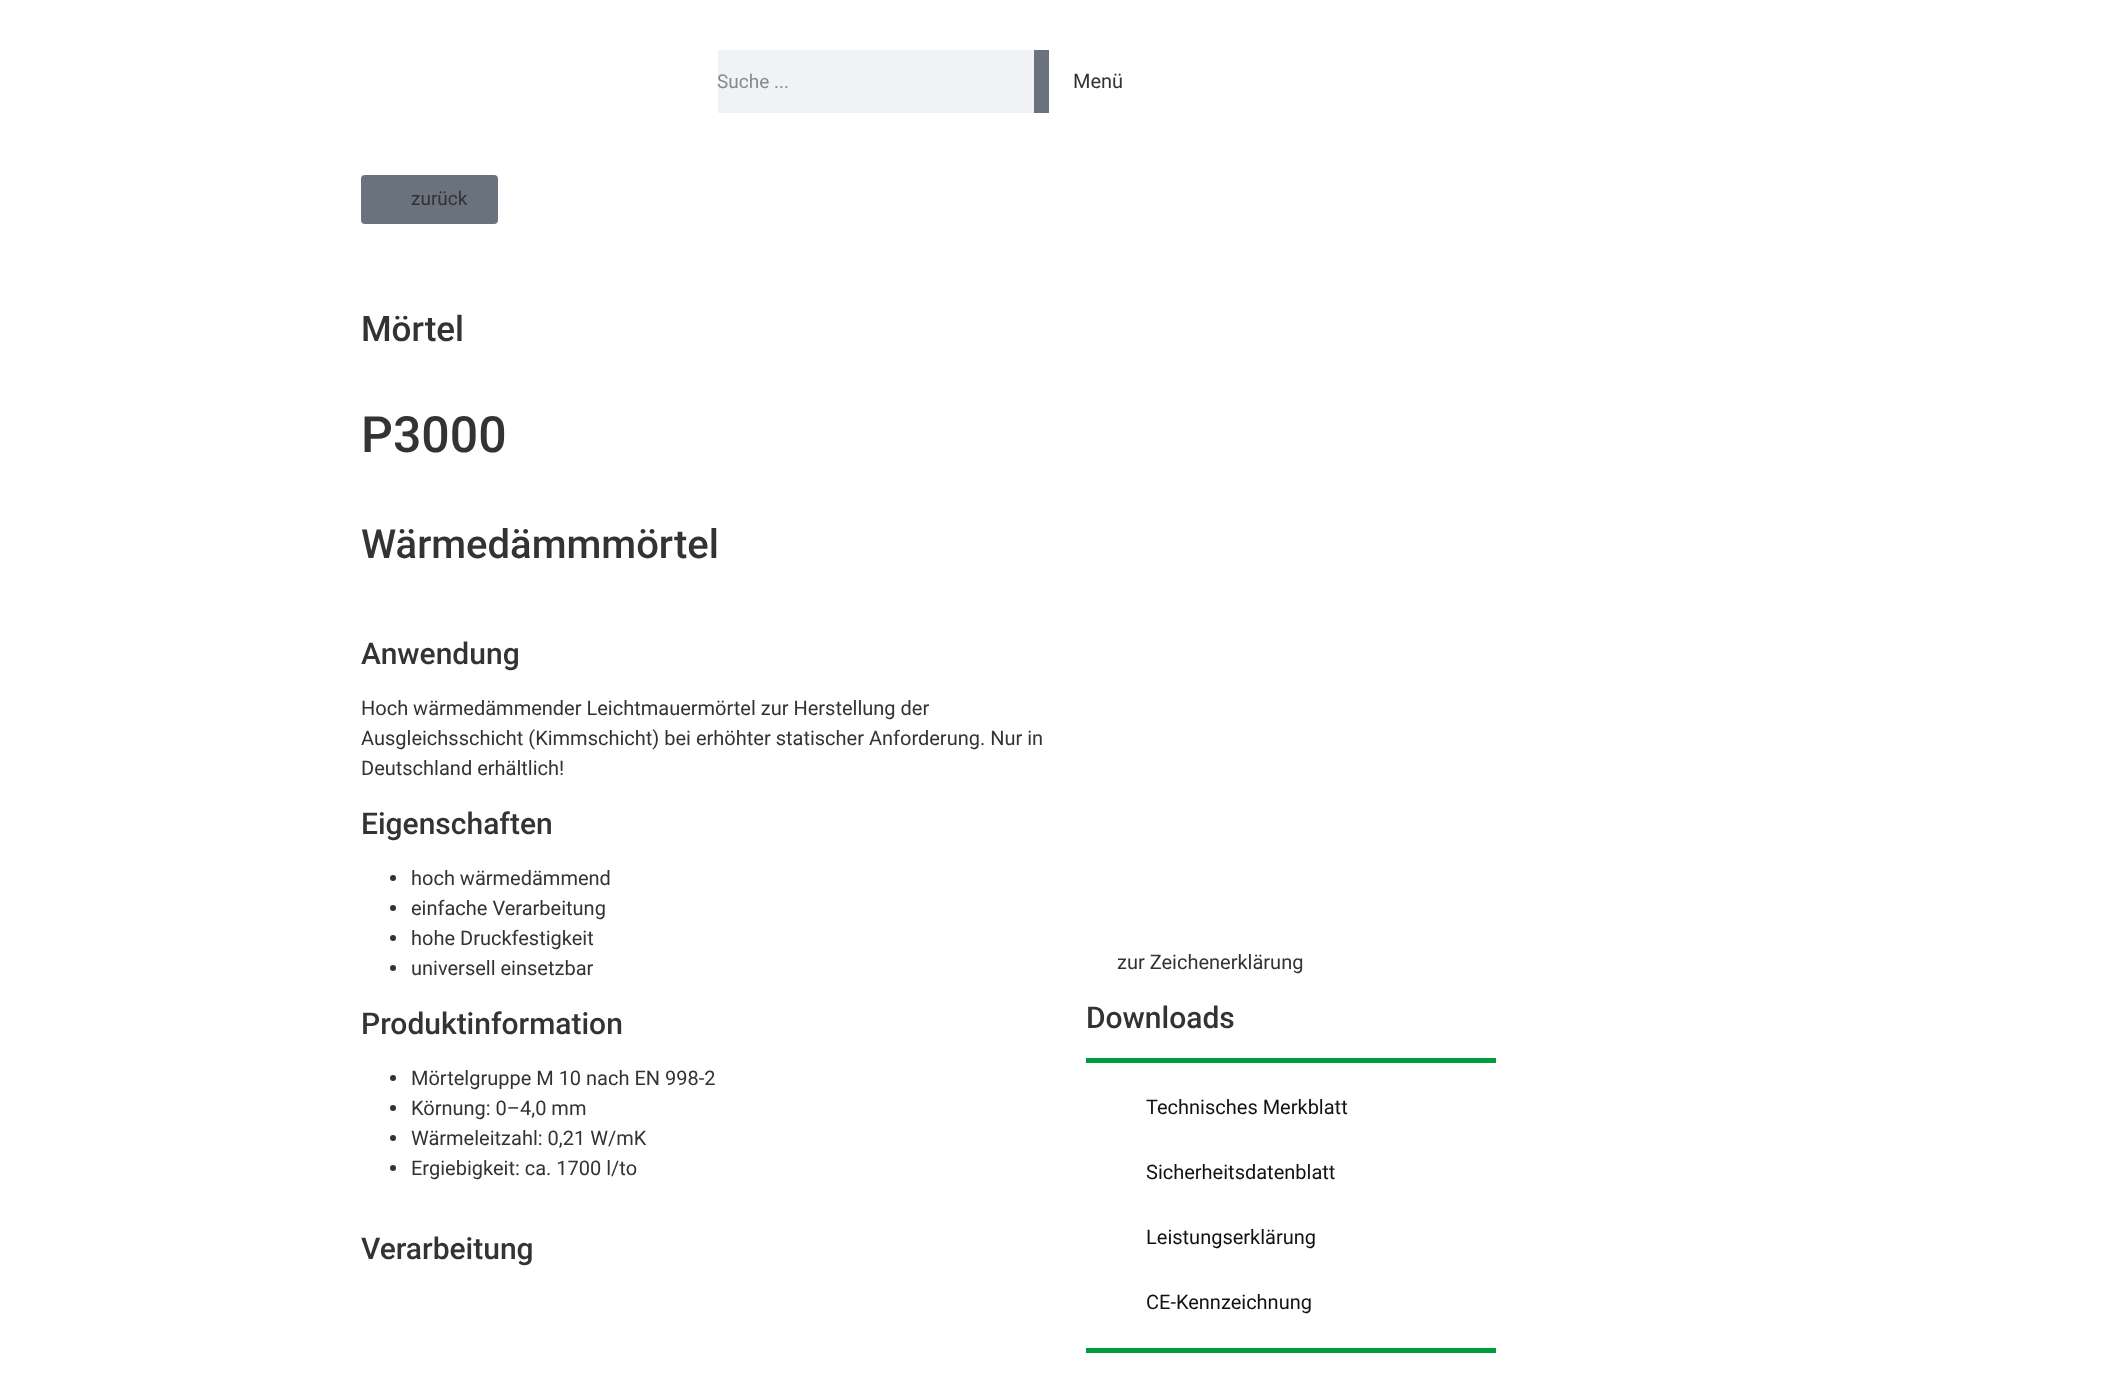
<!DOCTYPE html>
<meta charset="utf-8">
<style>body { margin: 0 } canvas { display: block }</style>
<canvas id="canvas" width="2121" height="1382"></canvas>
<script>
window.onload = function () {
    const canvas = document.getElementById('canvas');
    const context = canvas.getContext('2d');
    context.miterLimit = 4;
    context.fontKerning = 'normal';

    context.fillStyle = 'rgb(255, 255, 255)';
    context.fillRect(0, 0, 2121, 1382);
    context.fillStyle = 'rgb(241, 242, 243)';
    context.fillRect(718, 50, 316, 63);
    context.fillStyle = 'rgb(105, 114, 125)';
    context.fillRect(1034, 50, 15, 63);
    context.beginPath();
    context.roundRect(361, 175, 137, 49, 4);
    context.fill();
    context.fillStyle = 'rgb(51, 51, 51)';
    context.beginPath();
    context.arc(393, 878, 3, 0, 2 * Math.PI);
    context.fill();
    context.beginPath();
    context.arc(393, 908, 3, 0, 2 * Math.PI);
    context.fill();
    context.beginPath();
    context.arc(393, 938, 3, 0, 2 * Math.PI);
    context.fill();
    context.beginPath();
    context.arc(393, 968, 3, 0, 2 * Math.PI);
    context.fill();
    context.beginPath();
    context.arc(393, 1078, 3, 0, 2 * Math.PI);
    context.fill();
    context.beginPath();
    context.arc(393, 1108, 3, 0, 2 * Math.PI);
    context.fill();
    context.beginPath();
    context.arc(393, 1138, 3, 0, 2 * Math.PI);
    context.fill();
    context.beginPath();
    context.arc(393, 1168, 3, 0, 2 * Math.PI);
    context.fill();
    context.fillStyle = 'rgb(0, 157, 60)';
    context.fillRect(1086, 1058, 410, 5);
    context.fillRect(1086, 1348, 410, 5);
    context.font = '19px Roboto';
    context.fillStyle = 'rgb(134, 138, 142)';
    context.fillText('Suche ...', 717, 88);
    context.font = '20px Roboto';
    context.fillStyle = 'rgb(51, 51, 51)';
    context.fillText('Menü', 1073, 88);
    context.font = '19px Roboto';
    context.fillText('zurück', 411, 205);
    context.font = '500 35px Roboto';
    context.fillText('Mörtel', 361, 341);
    context.font = '500 50px Roboto';
    context.fillText('P3000', 361, 452);
    context.font = '500 40px Roboto';
    context.fillText('Wärmedämmmörtel', 361, 558);
    context.font = '500 30px Roboto';
    context.fillText('Anwendung', 361, 664);
    context.font = '20px Roboto';
    context.fillText('Hoch wärmedämmender Leichtmauermörtel zur Herstellung der', 361, 715);
    context.fillText('Ausgleichsschicht (Kimmschicht) bei erhöhter statischer Anforderung. Nur in', 361, 745);
    context.fillText('Deutschland erhältlich!', 361, 775);
    context.font = '500 30px Roboto';
    context.fillText('Eigenschaften', 361, 834);
    context.font = '20px Roboto';
    context.fillText('hoch wärmedämmend', 411, 885);
    context.fillText('einfache Verarbeitung', 411, 915);
    context.fillText('hohe Druckfestigkeit', 411, 945);
    context.fillText('universell einsetzbar', 411, 975);
    context.font = '500 30px Roboto';
    context.fillText('Produktinformation', 361, 1034);
    context.font = '20px Roboto';
    context.fillText('Mörtelgruppe M 10 nach EN 998-2', 411, 1085);
    context.fillText('Körnung: 0–4,0 mm', 411, 1115);
    context.fillText('Wärmeleitzahl: 0,21 W/mK', 411, 1145);
    context.fillText('Ergiebigkeit: ca. 1700 l/to', 411, 1175);
    context.font = '500 30px Roboto';
    context.fillText('Verarbeitung', 361, 1259);
    context.font = '20px Roboto';
    context.fillText('zur Zeichenerklärung', 1117, 969);
    context.font = '500 30px Roboto';
    context.fillText('Downloads', 1086, 1028);
    context.font = '20px Roboto';
    context.fillStyle = 'rgb(18, 18, 18)';
    context.fillText('Technisches Merkblatt', 1146, 1114);
    context.fillText('Sicherheitsdatenblatt', 1146, 1179);
    context.fillText('Leistungserklärung', 1146, 1244);
    context.fillText('CE-Kennzeichnung', 1146, 1309);
};
</script>
